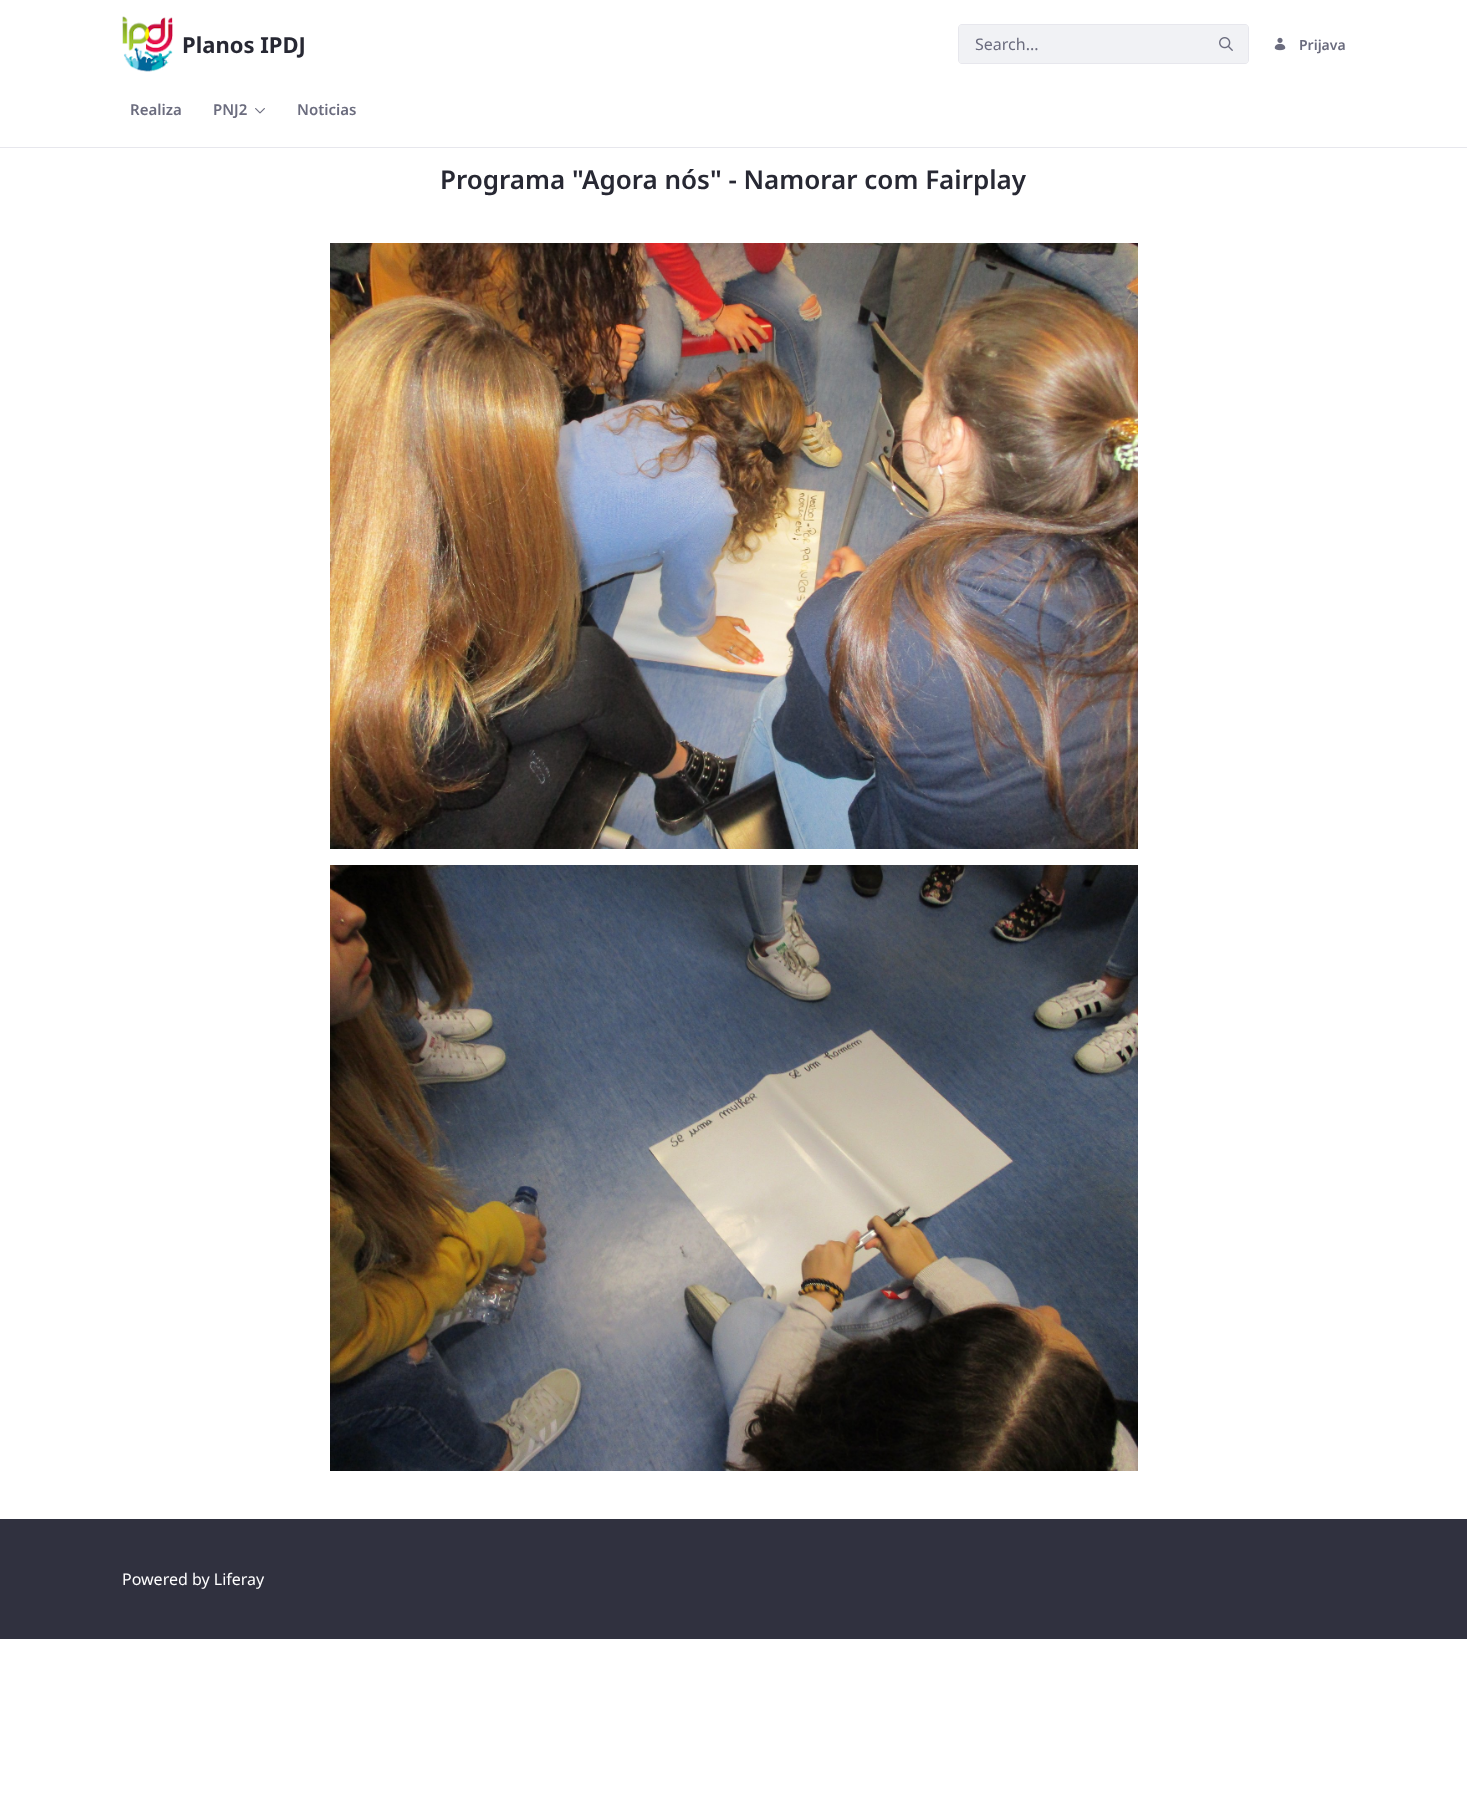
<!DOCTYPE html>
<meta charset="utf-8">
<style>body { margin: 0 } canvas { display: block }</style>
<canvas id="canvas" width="1467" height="1812"></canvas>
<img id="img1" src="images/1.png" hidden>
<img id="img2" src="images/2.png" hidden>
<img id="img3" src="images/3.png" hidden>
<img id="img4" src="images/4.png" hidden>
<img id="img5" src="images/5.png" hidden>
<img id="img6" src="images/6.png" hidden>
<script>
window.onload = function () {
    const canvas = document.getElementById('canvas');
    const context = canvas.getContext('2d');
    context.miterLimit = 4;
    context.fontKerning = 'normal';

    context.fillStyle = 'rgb(255, 255, 255)';
    context.fillRect(0, 0, 1467, 1812);
    context.drawImage(document.getElementById('img1'), 122, 16, 51, 56);
    context.fillStyle = 'rgb(241, 242, 245)';
    context.beginPath();
    context.roundRect(959, 25, 245, 38, [3, 0, 0, 3]);
    context.fill();
    context.fillStyle = 'rgb(231, 231, 237)';
    context.beginPath();
    context.moveTo(962, 24);
    context.lineTo(1204, 24);
    context.lineTo(1204, 64);
    context.lineTo(962, 64);
    context.bezierCurveTo(960, 64, 958, 62, 958, 60);
    context.lineTo(958, 28);
    context.bezierCurveTo(958, 26, 960, 24, 962, 24);
    context.closePath();
    context.moveTo(962, 25);
    context.lineTo(1204, 25);
    context.lineTo(1204, 63);
    context.lineTo(962, 63);
    context.bezierCurveTo(960, 63, 959, 62, 959, 60);
    context.lineTo(959, 28);
    context.bezierCurveTo(959, 26, 960, 25, 962, 25);
    context.closePath();
    context.fill('evenodd');
    context.fillStyle = 'rgb(241, 242, 245)';
    context.beginPath();
    context.roundRect(1204, 25, 44, 38, [0, 3, 3, 0]);
    context.fill();
    context.fillStyle = 'rgb(231, 231, 237)';
    context.beginPath();
    context.moveTo(1204, 24);
    context.lineTo(1245, 24);
    context.bezierCurveTo(1247, 24, 1249, 26, 1249, 28);
    context.lineTo(1249, 60);
    context.bezierCurveTo(1249, 62, 1247, 64, 1245, 64);
    context.lineTo(1204, 64);
    context.closePath();
    context.moveTo(1204, 25);
    context.lineTo(1245, 25);
    context.bezierCurveTo(1247, 25, 1248, 26, 1248, 28);
    context.lineTo(1248, 60);
    context.bezierCurveTo(1248, 62, 1247, 63, 1245, 63);
    context.lineTo(1204, 63);
    context.closePath();
    context.fill('evenodd');
    context.drawImage(document.getElementById('img2'), 1219, 37, 14, 14);
    context.drawImage(document.getElementById('img3'), 1274, 37, 12, 14);
    context.fillRect(0, 147, 1467, 1);
    context.drawImage(document.getElementById('img4'), 255, 108, 10, 6);
    context.drawImage(document.getElementById('img5'), 330, 243, 808, 606);
    context.drawImage(document.getElementById('img6'), 330, 865, 808, 606);
    context.fillStyle = 'rgb(48, 49, 63)';
    context.fillRect(0, 1519, 1467, 120);
    context.font = 'bold 22px Noto Sans';
    context.fillStyle = 'rgb(39, 40, 51)';
    context.fillText('Planos IPDJ', 182, 53);
    context.font = '16px Noto Sans';
    context.fillStyle = 'rgb(107, 108, 126)';
    context.fillText('Search...', 975, 50);
    context.font = '600 14px Noto Sans';
    context.fillText('Prijava', 1299, 50);
    context.font = '600 15px Noto Sans';
    context.fillText('Realiza', 130, 115);
    context.fillText('PNJ2', 213, 115);
    context.fillText('Noticias', 297, 115);
    context.font = '600 26px Noto Sans';
    context.fillStyle = 'rgb(39, 40, 51)';
    context.fillText('Programa "Agora nós" - Namorar com Fairplay', 440, 189);
    context.font = '16px Noto Sans';
    context.fillStyle = 'rgb(255, 255, 255)';
    context.fillText('Powered by Liferay', 122, 1585);
};
</script>
